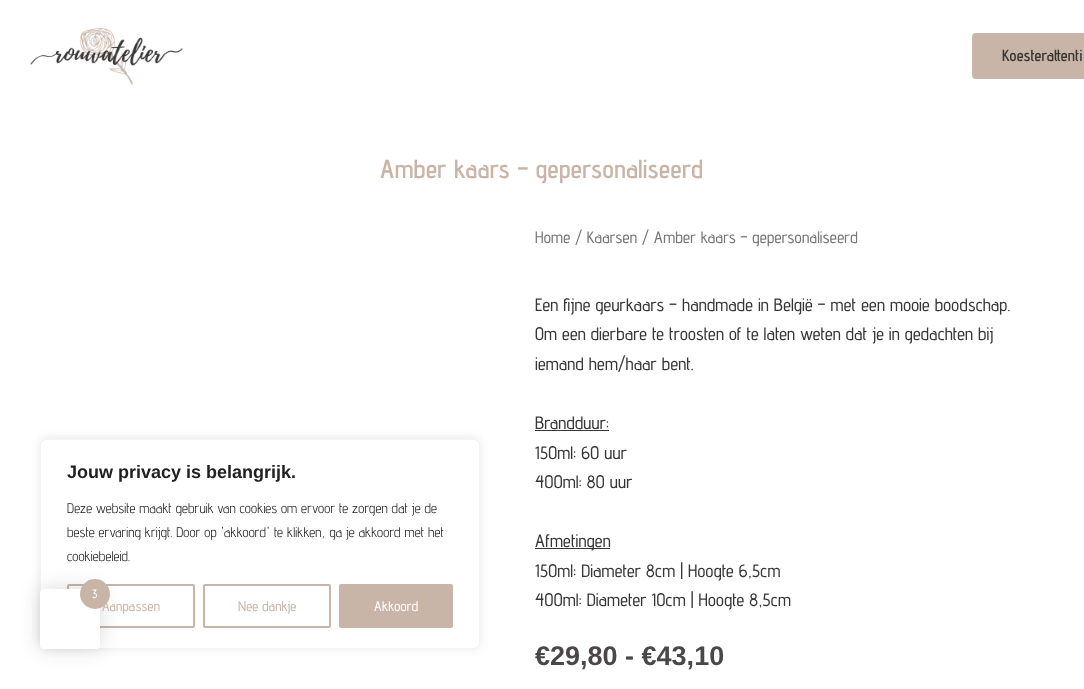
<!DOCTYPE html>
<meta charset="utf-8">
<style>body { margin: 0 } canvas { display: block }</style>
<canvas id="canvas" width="1084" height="689"></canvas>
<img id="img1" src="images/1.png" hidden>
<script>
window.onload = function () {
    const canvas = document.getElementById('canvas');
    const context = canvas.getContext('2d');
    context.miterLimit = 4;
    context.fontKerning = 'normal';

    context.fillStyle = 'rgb(255, 255, 255)';
    context.fillRect(0, 0, 1084, 689);
    context.fillStyle = 'rgba(172, 171, 171, 0.3)';
    context.filter = 'blur(5px)';
    context.beginPath();
    context.roundRect(40, 438, 440, 210, 6);
    context.fill();
    context.filter = 'none';
    context.fillStyle = 'rgb(255, 255, 255)';
    context.beginPath();
    context.roundRect(40.5, 439.5, 439, 209, 5.5);
    context.fill();
    context.strokeStyle = 'rgb(244, 244, 244)';
    context.stroke();
    context.beginPath();
    context.roundRect(68, 585, 126, 42, 1);
    context.strokeStyle = 'rgb(201, 181, 167)';
    context.lineWidth = 2;
    context.stroke();
    context.beginPath();
    context.roundRect(204, 585, 126, 42, 1);
    context.stroke();
    context.fillStyle = 'rgb(201, 181, 167)';
    context.beginPath();
    context.roundRect(340, 585, 112, 42, 1);
    context.fill();
    context.stroke();
    context.drawImage(document.getElementById('img1'), 30, 28, 153, 57);
    context.beginPath();
    context.roundRect(972, 33, 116, 46, 4);
    context.fill();
    context.fillStyle = 'rgb(56, 54, 53)';
    context.fillRect(535, 430, 74, 1);
    context.fillRect(535, 548, 75, 1);
    context.fillStyle = 'rgba(0, 0, 0, 0.15)';
    context.filter = 'blur(10px)';
    context.beginPath();
    context.roundRect(40, 589, 60, 60, 4);
    context.fill();
    context.filter = 'none';
    context.fillStyle = 'rgb(255, 255, 255)';
    context.beginPath();
    context.roundRect(40, 589, 60, 60, 4);
    context.fill();
    context.fillStyle = 'rgb(201, 181, 167)';
    context.beginPath();
    context.arc(95, 594, 15, 0, 2 * Math.PI);
    context.fill();
    context.font = 'bold 18px Liberation Sans';
    context.fillStyle = 'rgb(33, 33, 33)';
    context.fillText('Jouw privacy is belangrijk.', 67, 478);
    context.font = '14px Advent Pro';
    context.fillText('Deze website maakt gebruik van cookies om ervoor te zorgen dat je de', 67, 513);
    context.fillText('beste ervaring krijgt. Door op \'akkoord\' te klikken, ga je akkoord met het', 67, 537);
    context.fillText('cookiebeleid.', 67, 561);
    context.font = '500 14px Advent Pro';
    context.fillStyle = 'rgb(201, 181, 167)';
    context.fillText('Aanpassen', 102, 611);
    context.fillText('Nee dankje', 238, 611);
    context.fillStyle = 'rgb(255, 255, 255)';
    context.fillText('Akkoord', 374, 611);
    context.font = '600 16px Advent Pro';
    context.fillStyle = 'rgb(56, 54, 53)';
    context.fillText('Koesterattenti', 1002, 61);
    context.font = '600 26px Advent Pro';
    context.fillStyle = 'rgb(201, 181, 167)';
    context.fillText('Amber kaars – gepersonaliseerd', 380, 178);
    context.font = '500 16.6px Advent Pro';
    context.fillStyle = 'rgb(119, 119, 119)';
    context.fillText('Home / Kaarsen / Amber kaars – gepersonaliseerd', 535, 243);
    context.font = '500 18px Advent Pro';
    context.fillStyle = 'rgb(56, 54, 53)';
    context.fillText('Een fijne geurkaars – handmade in België – met een mooie boodschap.', 535, 311);
    context.fillText('Om een dierbare te troosten of te laten weten dat je in gedachten bij', 535, 340);
    context.fillText('iemand hem/haar bent.', 535, 370);
    context.fillText('Brandduur:', 535, 429);
    context.fillText('150ml: 60 uur', 535, 459);
    context.fillText('400ml: 80 uur', 535, 488);
    context.fillText('Afmetingen', 535, 547);
    context.fillText('150ml: Diameter 8cm | Hoogte 6,5cm', 535, 577);
    context.fillText('400ml: Diameter 10cm | Hoogte 8,5cm', 535, 606);
    context.font = 'bold 27px Liberation Sans';
    context.fillStyle = 'rgb(75, 71, 68)';
    context.fillText('€29,80 - €43,10', 535, 665);
    context.font = '500 12px Advent Pro';
    context.fillStyle = 'rgb(255, 255, 255)';
    context.fillText('3', 92, 598);
};
</script>
